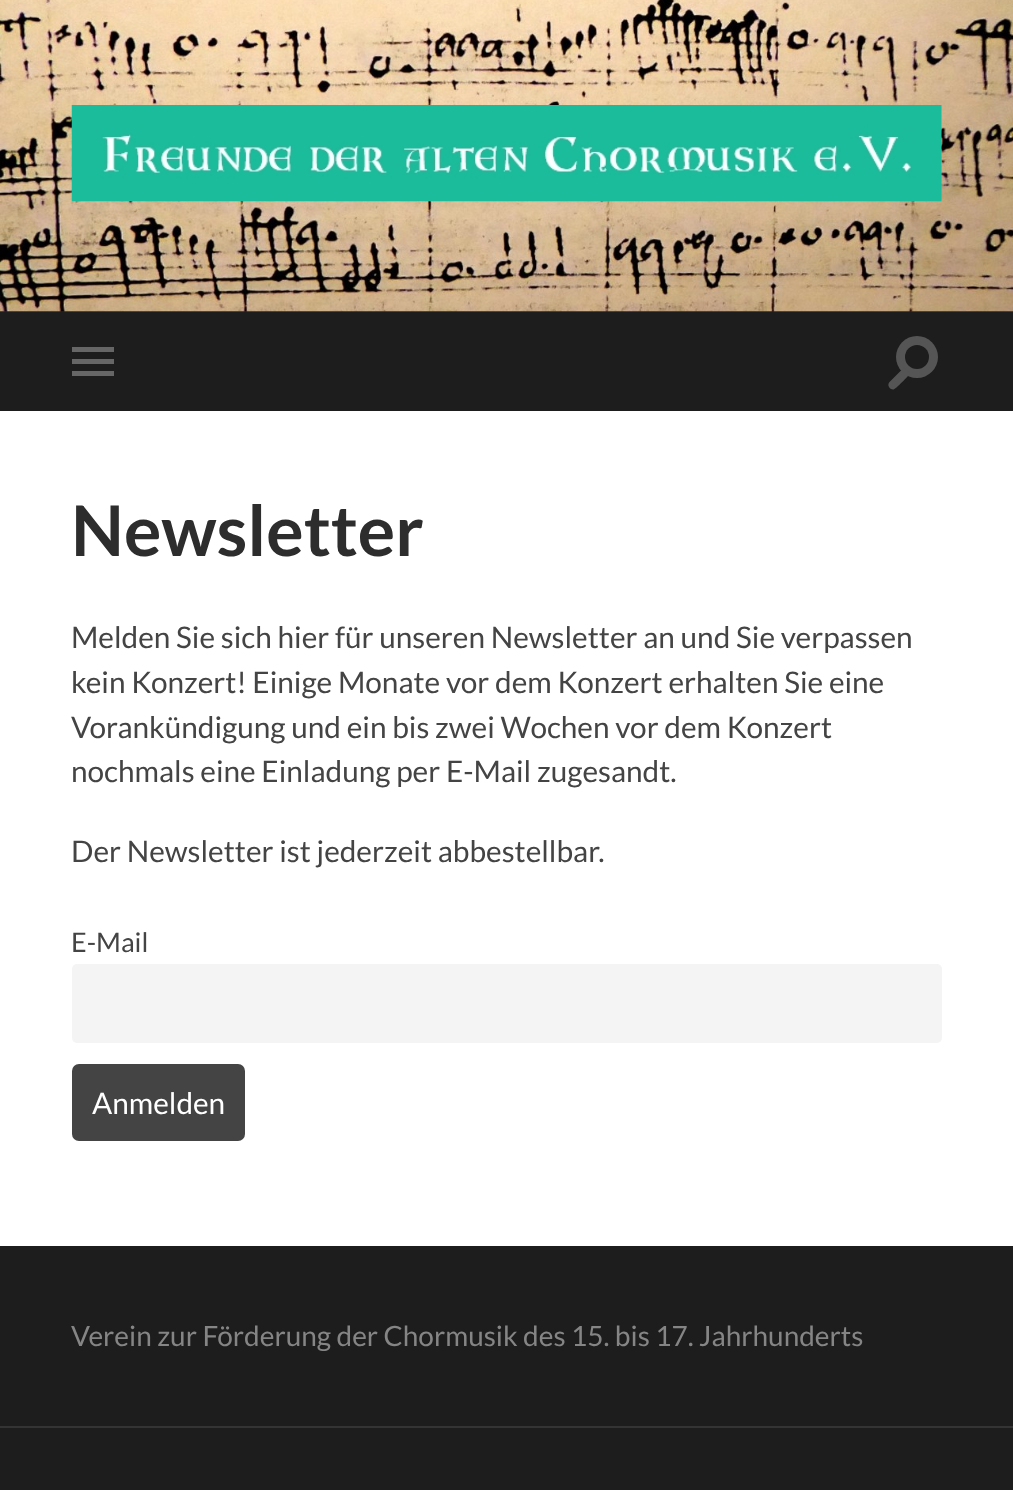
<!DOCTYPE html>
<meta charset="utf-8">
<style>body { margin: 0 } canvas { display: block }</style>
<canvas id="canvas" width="1013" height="1490"></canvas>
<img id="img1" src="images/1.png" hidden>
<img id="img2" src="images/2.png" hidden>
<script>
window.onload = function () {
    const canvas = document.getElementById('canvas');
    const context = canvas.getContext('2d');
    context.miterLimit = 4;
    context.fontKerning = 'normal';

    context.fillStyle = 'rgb(255, 255, 255)';
    context.fillRect(0, 0, 1013, 1490);
    context.fillStyle = 'rgb(38, 38, 38)';
    context.fillRect(0, 311, 1013, 1);
    context.drawImage(document.getElementById('img1'), 0, 0, 1013, 312);
    context.drawImage(document.getElementById('img2'), 71, 105, 871, 97);
    context.fillStyle = 'rgb(29, 29, 29)';
    context.fillRect(0, 312, 1013, 99);
    context.fillStyle = 'rgb(102, 102, 102)';
    context.fillRect(72, 347, 42, 5);
    context.fillRect(72, 359, 42, 5);
    context.fillRect(72, 371, 42, 5);
    context.fillStyle = 'rgb(85, 85, 85)';
    context.beginPath();
    context.arc(917, 357, 21, 0, 2 * Math.PI);
    context.fill();
    context.fillStyle = 'rgb(29, 29, 29)';
    context.beginPath();
    context.arc(917, 357, 12, 0, 2 * Math.PI);
    context.fill();
    context.fillStyle = 'rgb(85, 85, 85)';
    context.beginPath();
    context.moveTo(889.5, 382);
    context.lineTo(904, 367.5);
    context.lineTo(910.5, 373.5);
    context.bezierCurveTo(908, 376, 896, 389, 893.5, 389.5);
    context.bezierCurveTo(890, 390, 886.5, 385, 889.5, 382);
    context.closePath();
    context.fill();
    context.fillStyle = 'rgb(244, 244, 244)';
    context.beginPath();
    context.roundRect(72, 964, 870, 79, 5);
    context.fill();
    context.fillStyle = 'rgb(68, 68, 68)';
    context.beginPath();
    context.roundRect(72, 1064, 173, 77, 7);
    context.fill();
    context.fillStyle = 'rgb(29, 29, 29)';
    context.fillRect(0, 1246, 1013, 180);
    context.fillRect(0, 1428, 1013, 62);
    context.fillStyle = 'rgb(52, 52, 52)';
    context.fillRect(0, 1426, 1013, 2);
    context.font = 'bold 70px Lato';
    context.fillStyle = 'rgb(45, 45, 45)';
    context.fillText('Newsletter', 71, 556);
    context.font = '29.75px Lato';
    context.fillStyle = 'rgb(68, 68, 68)';
    context.fillText('Melden Sie sich hier für unseren Newsletter an und Sie verpassen', 71, 648);
    context.fillText('kein Konzert! Einige Monate vor dem Konzert erhalten Sie eine', 71, 693);
    context.fillText('Vorankündigung und ein bis zwei Wochen vor dem Konzert', 71, 738);
    context.fillText('nochmals eine Einladung per E-Mail zugesandt.', 71, 782);
    context.fillText('Der Newsletter ist jederzeit abbestellbar.', 71, 862);
    context.font = '27px Lato';
    context.fillText('E-Mail', 71, 952);
    context.font = '29.75px Lato';
    context.fillStyle = 'rgb(255, 255, 255)';
    context.fillText('Anmelden', 92, 1114);
    context.font = '28px Lato';
    context.fillStyle = 'rgb(133, 133, 133)';
    context.fillText('Verein zur Förderung der Chormusik des 15. bis 17. Jahrhunderts', 71, 1346);
};
</script>
